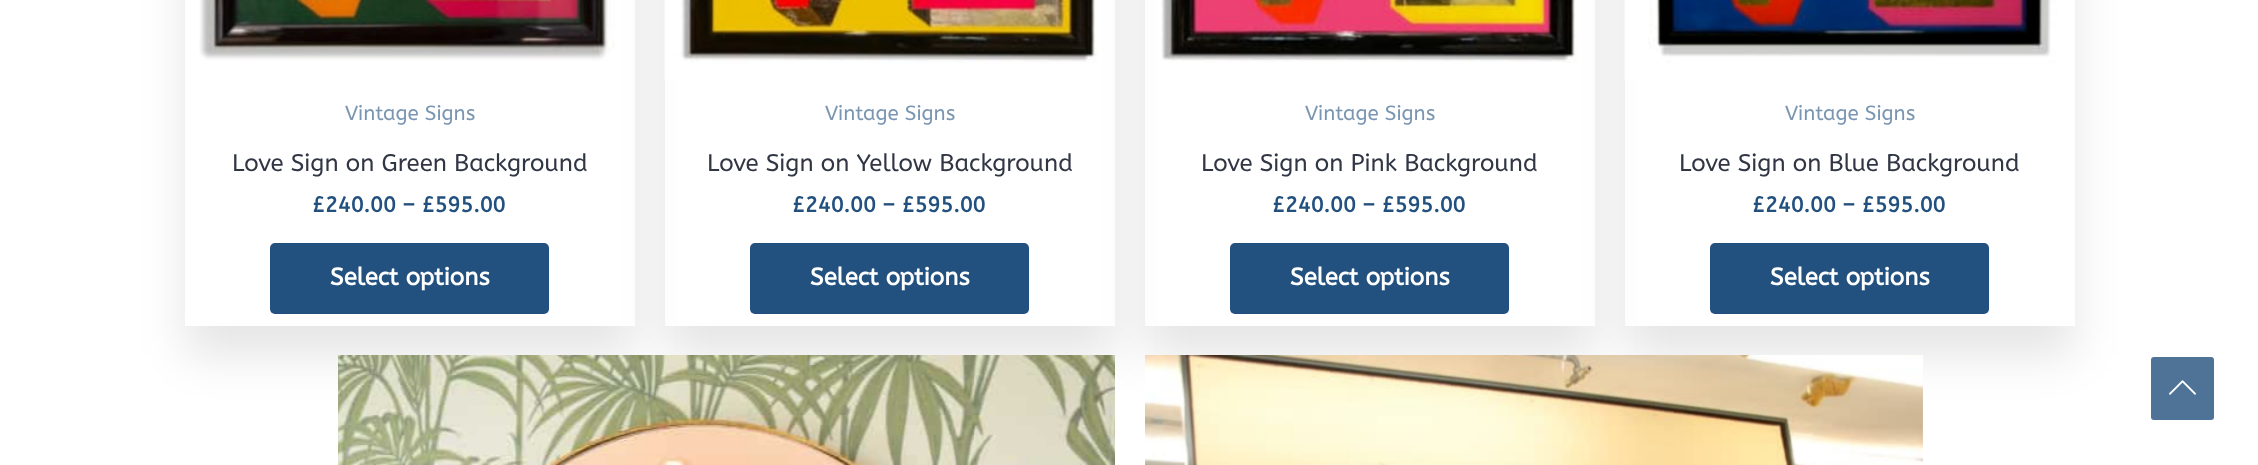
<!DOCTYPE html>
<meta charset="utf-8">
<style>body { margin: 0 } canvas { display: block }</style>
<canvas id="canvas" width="2258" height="465"></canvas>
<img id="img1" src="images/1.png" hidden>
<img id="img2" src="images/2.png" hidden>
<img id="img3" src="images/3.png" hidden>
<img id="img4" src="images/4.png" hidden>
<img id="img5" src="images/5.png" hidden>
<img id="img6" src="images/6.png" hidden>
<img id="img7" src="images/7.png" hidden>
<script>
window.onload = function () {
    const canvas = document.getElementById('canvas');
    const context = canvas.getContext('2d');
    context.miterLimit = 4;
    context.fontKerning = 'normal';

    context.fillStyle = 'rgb(255, 255, 255)';
    context.fillRect(0, 0, 2258, 465);
    context.save();
    context.beginPath();
    context.moveTo(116, 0);
    context.lineTo(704, 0);
    context.lineTo(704, 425);
    context.lineTo(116, 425);
    context.closePath();
    context.moveTo(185, -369);
    context.lineTo(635, -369);
    context.lineTo(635, 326);
    context.lineTo(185, 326);
    context.closePath();
    context.clip('evenodd');
    context.fillStyle = 'rgba(0, 0, 0, 0.1)';
    context.filter = 'blur(22.5px)';
    context.beginPath();
    context.rect(185, -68, 450, 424);
    context.fill();
    context.filter = 'none';
    context.restore();
    context.drawImage(document.getElementById('img1'), 199, 0, 416, 61);
    context.fillStyle = 'rgb(34, 80, 127)';
    context.beginPath();
    context.roundRect(270, 243, 279, 71, 5);
    context.fill();
    context.save();
    context.beginPath();
    context.moveTo(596, 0);
    context.lineTo(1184, 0);
    context.lineTo(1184, 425);
    context.lineTo(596, 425);
    context.closePath();
    context.moveTo(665, -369);
    context.lineTo(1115, -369);
    context.lineTo(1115, 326);
    context.lineTo(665, 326);
    context.closePath();
    context.clip('evenodd');
    context.fillStyle = 'rgba(0, 0, 0, 0.1)';
    context.filter = 'blur(22.5px)';
    context.beginPath();
    context.rect(665, -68, 450, 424);
    context.fill();
    context.filter = 'none';
    context.restore();
    context.drawImage(document.getElementById('img2'), 664, 0, 451, 80);
    context.beginPath();
    context.roundRect(750, 243, 279, 71, 5);
    context.fill();
    context.save();
    context.beginPath();
    context.moveTo(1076, 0);
    context.lineTo(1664, 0);
    context.lineTo(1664, 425);
    context.lineTo(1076, 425);
    context.closePath();
    context.moveTo(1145, -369);
    context.lineTo(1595, -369);
    context.lineTo(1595, 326);
    context.lineTo(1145, 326);
    context.closePath();
    context.clip('evenodd');
    context.fillStyle = 'rgba(0, 0, 0, 0.1)';
    context.filter = 'blur(22.5px)';
    context.beginPath();
    context.rect(1145, -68, 450, 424);
    context.fill();
    context.filter = 'none';
    context.restore();
    context.drawImage(document.getElementById('img3'), 1161, 0, 416, 63);
    context.beginPath();
    context.roundRect(1230, 243, 279, 71, 5);
    context.fill();
    context.save();
    context.beginPath();
    context.moveTo(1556, 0);
    context.lineTo(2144, 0);
    context.lineTo(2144, 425);
    context.lineTo(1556, 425);
    context.closePath();
    context.moveTo(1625, -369);
    context.lineTo(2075, -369);
    context.lineTo(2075, 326);
    context.lineTo(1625, 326);
    context.closePath();
    context.clip('evenodd');
    context.fillStyle = 'rgba(0, 0, 0, 0.1)';
    context.filter = 'blur(22.5px)';
    context.beginPath();
    context.rect(1625, -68, 450, 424);
    context.fill();
    context.filter = 'none';
    context.restore();
    context.drawImage(document.getElementById('img4'), 1624, 0, 451, 80);
    context.beginPath();
    context.roundRect(1710, 243, 279, 71, 5);
    context.fill();
    context.drawImage(document.getElementById('img5'), 338, 355, 777, 110);
    context.drawImage(document.getElementById('img6'), 1145, 355, 778, 110);
    context.fillStyle = 'rgb(78, 115, 150)';
    context.beginPath();
    context.moveTo(2211, 420);
    context.lineTo(2154, 420);
    context.bezierCurveTo(2152, 420, 2151, 419, 2151, 417);
    context.lineTo(2151, 360);
    context.bezierCurveTo(2151, 358, 2152, 357, 2154, 357);
    context.lineTo(2211, 357);
    context.bezierCurveTo(2213, 357, 2214, 358, 2214, 360);
    context.lineTo(2214, 417);
    context.bezierCurveTo(2214, 419, 2213, 420, 2211, 420);
    context.closePath();
    context.fill();
    context.drawImage(document.getElementById('img7'), 2169, 380, 27, 15);
    context.font = '20.5px ABeeZee';
    context.fillStyle = 'rgb(122, 150, 178)';
    context.fillText('Vintage Signs', 345, 120);
    context.font = '24px ABeeZee';
    context.fillStyle = 'rgb(48, 54, 68)';
    context.fillText('Love Sign on Green Background', 232, 171);
    context.font = 'bold 21.5px ABeeZee';
    context.fillStyle = 'rgb(34, 80, 127)';
    context.fillText('£240.00 – £595.00', 312, 212);
    context.font = 'bold 24px ABeeZee';
    context.fillStyle = 'rgb(255, 255, 255)';
    context.fillText('Select options', 330, 285);
    context.font = '20.5px ABeeZee';
    context.fillStyle = 'rgb(122, 150, 178)';
    context.fillText('Vintage Signs', 825, 120);
    context.font = '24px ABeeZee';
    context.fillStyle = 'rgb(48, 54, 68)';
    context.fillText('Love Sign on Yellow Background', 707, 171);
    context.font = 'bold 21.5px ABeeZee';
    context.fillStyle = 'rgb(34, 80, 127)';
    context.fillText('£240.00 – £595.00', 792, 212);
    context.font = 'bold 24px ABeeZee';
    context.fillStyle = 'rgb(255, 255, 255)';
    context.fillText('Select options', 810, 285);
    context.font = '20.5px ABeeZee';
    context.fillStyle = 'rgb(122, 150, 178)';
    context.fillText('Vintage Signs', 1305, 120);
    context.font = '24px ABeeZee';
    context.fillStyle = 'rgb(48, 54, 68)';
    context.fillText('Love Sign on Pink Background', 1201, 171);
    context.font = 'bold 21.5px ABeeZee';
    context.fillStyle = 'rgb(34, 80, 127)';
    context.fillText('£240.00 – £595.00', 1272, 212);
    context.font = 'bold 24px ABeeZee';
    context.fillStyle = 'rgb(255, 255, 255)';
    context.fillText('Select options', 1290, 285);
    context.font = '20.5px ABeeZee';
    context.fillStyle = 'rgb(122, 150, 178)';
    context.fillText('Vintage Signs', 1785, 120);
    context.font = '24px ABeeZee';
    context.fillStyle = 'rgb(48, 54, 68)';
    context.fillText('Love Sign on Blue Background', 1679, 171);
    context.font = 'bold 21.5px ABeeZee';
    context.fillStyle = 'rgb(34, 80, 127)';
    context.fillText('£240.00 – £595.00', 1752, 212);
    context.font = 'bold 24px ABeeZee';
    context.fillStyle = 'rgb(255, 255, 255)';
    context.fillText('Select options', 1770, 285);
};
</script>
